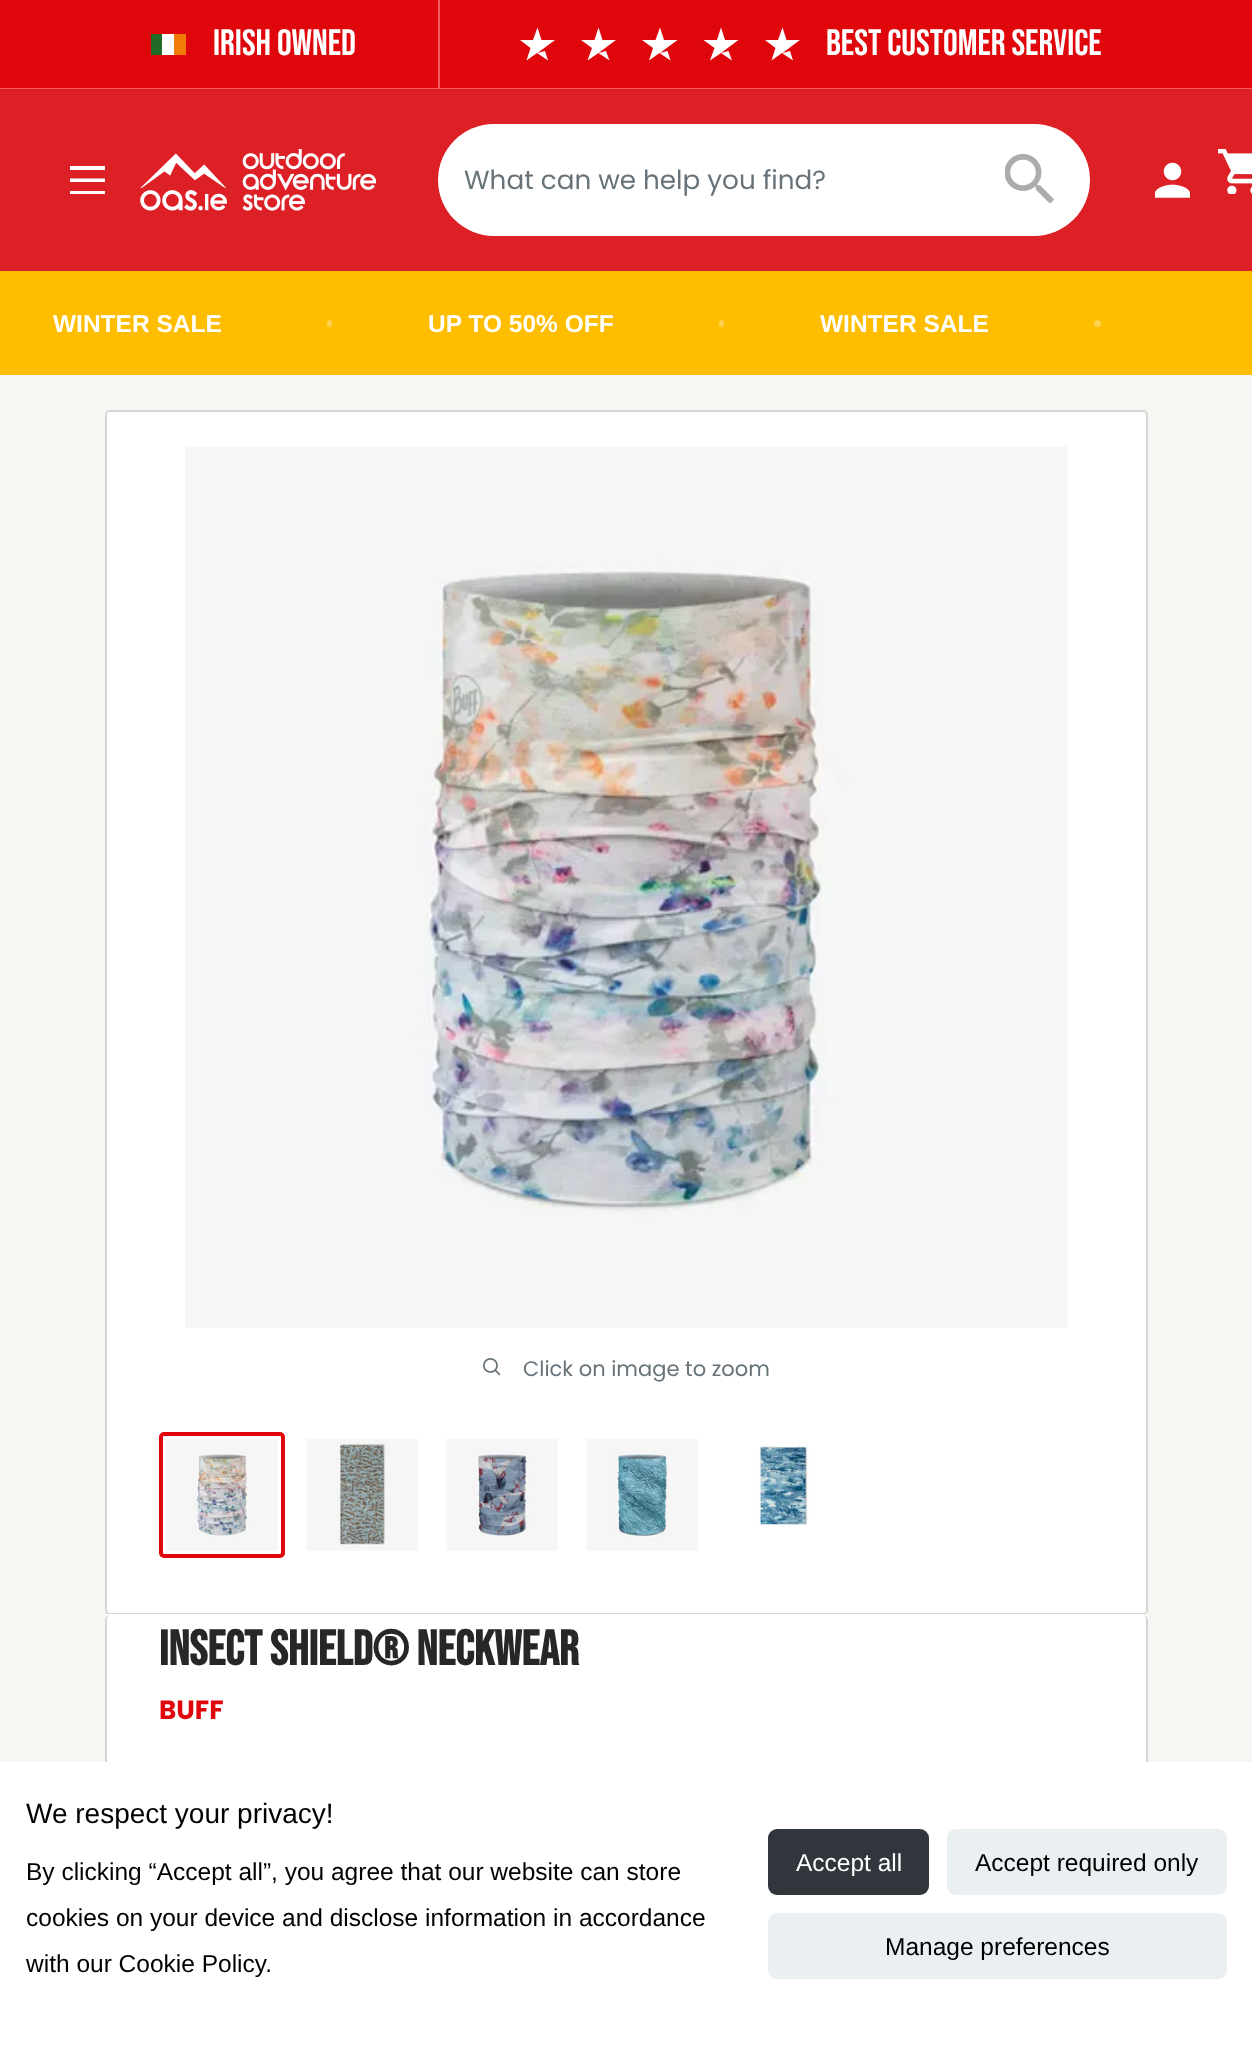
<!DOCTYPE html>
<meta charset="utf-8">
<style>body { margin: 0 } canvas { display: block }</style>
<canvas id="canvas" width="1252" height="2047"></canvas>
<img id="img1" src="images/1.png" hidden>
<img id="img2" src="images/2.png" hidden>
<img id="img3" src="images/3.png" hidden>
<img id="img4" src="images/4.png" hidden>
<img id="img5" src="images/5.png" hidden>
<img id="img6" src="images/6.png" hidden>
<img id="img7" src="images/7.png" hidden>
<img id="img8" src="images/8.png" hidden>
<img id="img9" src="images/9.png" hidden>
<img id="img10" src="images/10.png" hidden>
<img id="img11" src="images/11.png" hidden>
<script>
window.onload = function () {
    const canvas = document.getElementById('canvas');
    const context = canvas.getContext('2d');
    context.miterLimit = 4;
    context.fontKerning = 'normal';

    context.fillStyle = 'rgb(248, 246, 242)';
    context.fillRect(0, 0, 1252, 2047);
    context.fillStyle = 'rgb(223, 7, 11)';
    context.fillRect(0, 0, 1252, 88);
    context.fillStyle = 'rgb(248, 92, 95)';
    context.fillRect(0, 88, 1252, 1);
    context.fillStyle = 'rgb(34, 107, 38)';
    context.fillRect(151, 34, 11, 21);
    context.fillStyle = 'rgb(255, 255, 255)';
    context.fillRect(162, 34, 12, 21);
    context.fillStyle = 'rgb(242, 122, 6)';
    context.fillRect(174, 34, 12, 21);
    context.fillStyle = 'rgb(248, 92, 95)';
    context.fillRect(438, 0, 2, 88);
    context.fillStyle = 'rgb(255, 255, 255)';
    context.beginPath();
    context.moveTo(537.5, 27.5);
    context.lineTo(533, 40);
    context.lineTo(520, 40);
    context.lineTo(530.5, 48);
    context.lineTo(526.5, 60.5);
    context.lineTo(537, 53);
    context.lineTo(548, 60.5);
    context.lineTo(545, 51);
    context.lineTo(537.5, 53);
    context.lineTo(555, 40);
    context.lineTo(541.5, 40);
    context.closePath();
    context.fill();
    context.beginPath();
    context.moveTo(598.5, 27.5);
    context.lineTo(594.5, 40);
    context.lineTo(581, 40);
    context.lineTo(592, 48);
    context.lineTo(587.5, 60.5);
    context.lineTo(598.5, 53);
    context.lineTo(609.5, 60.5);
    context.lineTo(606, 51);
    context.lineTo(598.5, 53);
    context.lineTo(616, 40);
    context.lineTo(602.5, 40);
    context.closePath();
    context.fill();
    context.beginPath();
    context.moveTo(660, 27.5);
    context.lineTo(655.5, 40);
    context.lineTo(642, 40);
    context.lineTo(653, 48);
    context.lineTo(649, 60.5);
    context.lineTo(659.5, 53);
    context.lineTo(670.5, 60.5);
    context.lineTo(667.5, 51);
    context.lineTo(660, 53);
    context.lineTo(677.5, 40);
    context.lineTo(664, 40);
    context.closePath();
    context.fill();
    context.beginPath();
    context.moveTo(721, 27.5);
    context.lineTo(717, 40);
    context.lineTo(703.5, 40);
    context.lineTo(714.5, 48);
    context.lineTo(710, 60.5);
    context.lineTo(721, 53);
    context.lineTo(732, 60.5);
    context.lineTo(728.5, 51);
    context.lineTo(721, 53);
    context.lineTo(738.5, 40);
    context.lineTo(725, 40);
    context.closePath();
    context.fill();
    context.beginPath();
    context.moveTo(782.5, 27.5);
    context.lineTo(778, 40);
    context.lineTo(765, 40);
    context.lineTo(775.5, 48);
    context.lineTo(771.5, 60.5);
    context.lineTo(782, 53);
    context.lineTo(793, 60.5);
    context.lineTo(790, 51);
    context.lineTo(782.5, 53);
    context.lineTo(800, 40);
    context.lineTo(786.5, 40);
    context.closePath();
    context.fill();
    context.fillStyle = 'rgb(221, 31, 38)';
    context.fillRect(0, 89, 1252, 182);
    context.fillStyle = 'rgb(255, 255, 255)';
    context.beginPath();
    context.moveTo(70, 191);
    context.lineTo(105, 191);
    context.lineTo(105, 194);
    context.lineTo(70, 194);
    context.closePath();
    context.moveTo(70, 166);
    context.lineTo(105, 166);
    context.lineTo(105, 170);
    context.lineTo(70, 170);
    context.closePath();
    context.moveTo(70, 178.5);
    context.lineTo(105, 178.5);
    context.lineTo(105, 182);
    context.lineTo(70, 182);
    context.closePath();
    context.fill('evenodd');
    context.drawImage(document.getElementById('img1'), 140, 149, 236, 62);
    context.beginPath();
    context.roundRect(438, 124, 652, 112, 56);
    context.fill();
    context.drawImage(document.getElementById('img2'), 1005, 154, 49, 49);
    context.drawImage(document.getElementById('img3'), 1155, 162, 35, 36);
    context.drawImage(document.getElementById('img4'), 1218, 149, 34, 45);
    context.fillStyle = 'rgb(255, 189, 0)';
    context.fillRect(0, 271, 1252, 104);
    context.fillStyle = 'rgb(255, 209, 77)';
    context.beginPath();
    context.roundRect(327, 320, 5, 7, 2.5);
    context.fill();
    context.beginPath();
    context.roundRect(719, 320, 5, 7, 2.5);
    context.fill();
    context.beginPath();
    context.arc(1097.5, 323.5, 3.5, 0, 2 * Math.PI);
    context.fill();
    context.fillStyle = 'rgb(255, 255, 255)';
    context.beginPath();
    context.roundRect(106, 411, 1041, 1203, 4);
    context.fill();
    context.strokeStyle = 'rgb(213, 213, 213)';
    context.lineWidth = 2;
    context.stroke();
    context.drawImage(document.getElementById('img5'), 185, 446, 883, 882);
    context.drawImage(document.getElementById('img6'), 483, 1358, 18, 18);
    context.beginPath();
    context.roundRect(161, 1434, 122, 122, 3);
    context.strokeStyle = 'rgb(223, 7, 11)';
    context.lineWidth = 4;
    context.stroke();
    context.drawImage(document.getElementById('img7'), 166, 1438, 112, 113);
    context.drawImage(document.getElementById('img8'), 306, 1438, 112, 113);
    context.drawImage(document.getElementById('img9'), 446, 1438, 112, 113);
    context.drawImage(document.getElementById('img10'), 586, 1438, 112, 113);
    context.drawImage(document.getElementById('img11'), 759, 1445, 50, 80);
    context.beginPath();
    context.moveTo(110, 1614);
    context.bezierCurveTo(106, 1614, 105, 1617, 105, 1620);
    context.bezierCurveTo(105, 1618, 107, 1615, 110, 1615);
    context.lineTo(1143, 1615);
    context.bezierCurveTo(1146, 1615, 1148, 1618, 1148, 1620);
    context.bezierCurveTo(1148, 1617, 1147, 1614, 1143, 1614);
    context.closePath();
    context.fill();
    context.beginPath();
    context.roundRect(105, 1615, 1043, 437, 5);
    context.fill();
    context.fillStyle = 'rgb(213, 213, 213)';
    context.beginPath();
    context.moveTo(110, 1615);
    context.lineTo(1143, 1615);
    context.bezierCurveTo(1146, 1615, 1148, 1618, 1148, 1620);
    context.lineTo(1148, 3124);
    context.bezierCurveTo(1148, 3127, 1146, 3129, 1143, 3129);
    context.lineTo(110, 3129);
    context.bezierCurveTo(107, 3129, 105, 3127, 105, 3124);
    context.lineTo(105, 1620);
    context.bezierCurveTo(105, 1618, 107, 1615, 110, 1615);
    context.closePath();
    context.moveTo(110, 1615);
    context.lineTo(1143, 1615);
    context.bezierCurveTo(1145, 1615, 1146, 1618, 1146, 1620);
    context.lineTo(1146, 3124);
    context.bezierCurveTo(1146, 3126, 1145, 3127, 1143, 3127);
    context.lineTo(110, 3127);
    context.bezierCurveTo(108, 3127, 107, 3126, 107, 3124);
    context.lineTo(107, 1620);
    context.bezierCurveTo(107, 1618, 108, 1615, 110, 1615);
    context.closePath();
    context.fill('evenodd');
    context.fillStyle = 'rgb(255, 255, 255)';
    context.fillRect(0, 1762, 1252, 285);
    context.fillStyle = 'rgb(48, 54, 60)';
    context.beginPath();
    context.roundRect(768, 1829, 161, 66, 9);
    context.fill();
    context.fillStyle = 'rgb(234, 239, 242)';
    context.beginPath();
    context.roundRect(947, 1829, 280, 66, 9);
    context.fill();
    context.beginPath();
    context.roundRect(768, 1913, 459, 66, 9);
    context.fill();
    context.font = '36.75px Bebas Neue';
    context.fillStyle = 'rgb(255, 255, 255)';
    context.fillText('IRISH OWNED', 213, 55);
    context.fillText('BEST CUSTOMER SERVICE', 826, 55);
    context.font = '26.25px Poppins';
    context.fillStyle = 'rgb(103, 114, 121)';
    context.fillText('What can we help you find?', 464, 189);
    context.font = 'bold 24.5px Liberation Sans';
    context.fillStyle = 'rgb(255, 255, 255)';
    context.fillText('WINTER SALE', 53, 332);
    context.fillText('UP TO 50% OFF', 428, 332);
    context.fillText('WINTER SALE', 820, 332);
    context.font = '21px Poppins';
    context.fillStyle = 'rgb(103, 114, 121)';
    context.fillText('Click on image to zoom', 523, 1376);
    context.font = 'bold 49px Bebas Neue';
    context.fillStyle = 'rgb(39, 39, 39)';
    context.fillText('Insect Shield® Neckwear', 159, 1665);
    context.font = 'bold 26.25px Poppins';
    context.fillStyle = 'rgb(223, 7, 11)';
    context.fillText('BUFF', 159, 1719);
    context.font = '28px Liberation Sans';
    context.fillStyle = 'rgb(0, 0, 0)';
    context.fillText('We respect your privacy!', 26, 1823);
    context.font = '24.5px Liberation Sans';
    context.fillText('By clicking “Accept all”, you agree that our website can store', 26, 1880);
    context.fillText('cookies on your device and disclose information in accordance', 26, 1926);
    context.fillText('with our Cookie Policy.', 26, 1972);
    context.fillStyle = 'rgb(255, 255, 255)';
    context.fillText('Accept all', 796, 1871);
    context.fillStyle = 'rgb(0, 0, 0)';
    context.fillText('Accept required only', 975, 1871);
    context.fillText('Manage preferences', 885, 1955);
};
</script>
